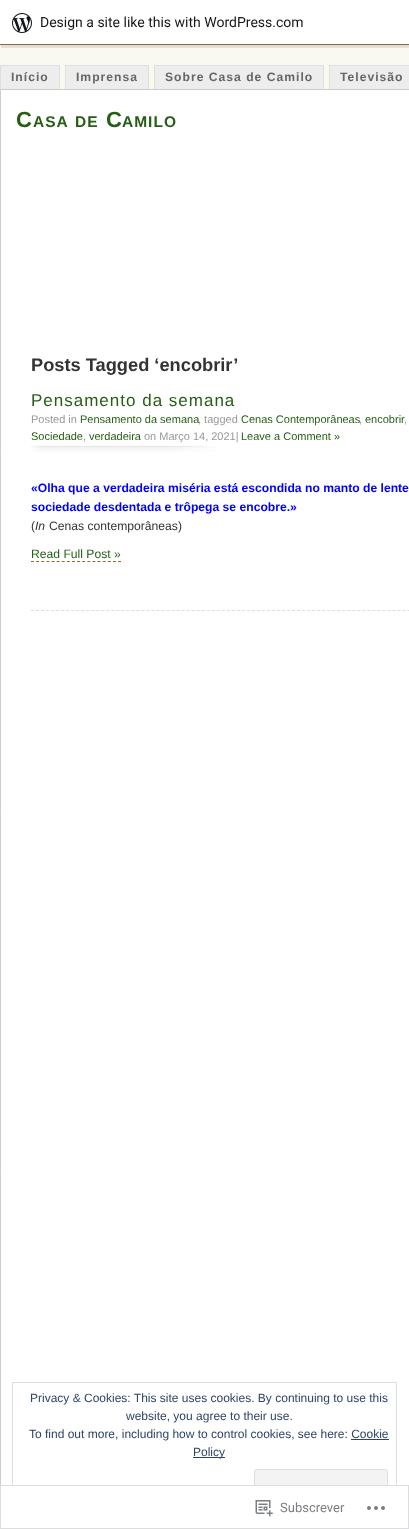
<!DOCTYPE html>
<meta charset="utf-8">
<style>body { margin: 0 } canvas { display: block }</style>
<canvas id="canvas" width="409" height="1529"></canvas>
<img id="img1" src="images/1.png" hidden>
<img id="img2" src="images/2.png" hidden>
<img id="img3" src="images/3.png" hidden>
<img id="img4" src="images/4.png" hidden>
<script>
window.onload = function () {
    const canvas = document.getElementById('canvas');
    const context = canvas.getContext('2d');
    context.miterLimit = 4;
    context.fontKerning = 'normal';

    context.fillStyle = 'rgb(249, 249, 240)';
    context.fillRect(0, 0, 409, 1529);
    context.fillStyle = 'rgba(0, 0, 0, 0.05)';
    context.filter = 'blur(1px)';
    context.beginPath();
    context.rect(0, 1, 409, 45);
    context.fill();
    context.filter = 'none';
    context.fillStyle = 'rgba(0, 0, 0, 0.08)';
    context.beginPath();
    context.moveTo(1, 45);
    context.lineTo(1, 48);
    context.lineTo(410, 48);
    context.lineTo(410, 3);
    context.lineTo(409, 3);
    context.lineTo(409, 45);
    context.closePath();
    context.fill();
    context.fillStyle = 'rgb(255, 255, 255)';
    context.fillRect(0, 0, 409, 44);
    context.drawImage(document.getElementById('img1'), 12, 13, 20, 20);
    context.fillStyle = 'rgb(153, 102, 51)';
    context.fillRect(0, 44, 409, 1);
    context.fillStyle = 'rgb(237, 237, 237)';
    context.fillRect(1, 66, 58, 23);
    context.fillStyle = 'rgb(222, 222, 222)';
    context.fillRect(0, 65, 60, 1);
    context.fillRect(59, 65, 1, 24);
    context.fillRect(0, 65, 1, 24);
    context.fillStyle = 'rgb(237, 237, 237)';
    context.fillRect(66, 66, 82, 23);
    context.fillStyle = 'rgb(222, 222, 222)';
    context.fillRect(65, 65, 84, 1);
    context.fillRect(148, 65, 1, 24);
    context.fillRect(65, 65, 1, 24);
    context.fillStyle = 'rgb(237, 237, 237)';
    context.fillRect(155, 66, 168, 23);
    context.fillStyle = 'rgb(222, 222, 222)';
    context.fillRect(154, 65, 170, 1);
    context.fillRect(323, 65, 1, 24);
    context.fillRect(154, 65, 1, 24);
    context.fillStyle = 'rgb(237, 237, 237)';
    context.fillRect(330, 66, 79, 23);
    context.fillStyle = 'rgb(222, 222, 222)';
    context.fillRect(329, 65, 80, 1);
    context.fillRect(329, 65, 1, 24);
    context.fillStyle = 'rgb(255, 255, 255)';
    context.beginPath();
    context.rect(0.5, 89.5, 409, 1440);
    context.fill();
    context.strokeStyle = 'rgb(204, 204, 204)';
    context.stroke();
    context.beginPath();
    context.moveTo(31, 610.5);
    context.lineTo(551, 610.5);
    context.strokeStyle = 'rgb(221, 221, 221)';
    context.setLineDash([3, 2.02]);
    context.stroke();
    context.drawImage(document.getElementById('img2'), 31, 445, 184, 7);
    context.beginPath();
    context.moveTo(31, 561.5);
    context.lineTo(121, 561.5);
    context.strokeStyle = 'rgb(153, 102, 51)';
    context.setLineDash([3, 2.12]);
    context.stroke();
    context.strokeStyle = 'rgb(222, 222, 222)';
    context.setLineDash([]);
    context.strokeRect(12.5, 1382.5, 384, 134);
    context.fillStyle = 'rgb(46, 68, 103)';
    context.fillRect(351, 1439, 38, 1);
    context.fillRect(193, 1457, 32, 1);
    context.fillStyle = 'rgb(243, 243, 243)';
    context.beginPath();
    context.roundRect(254.5, 1469.5, 133, 38, 2.5);
    context.fill();
    context.stroke();
    context.fillStyle = 'rgba(255, 255, 255, 0.98)';
    context.fillRect(0, 1485, 397, 44);
    context.strokeStyle = 'rgba(220, 220, 222, 0.98)';
    context.strokeRect(0.5, 1485.5, 408, 43);
    context.drawImage(document.getElementById('img3'), 255, 1500, 18, 17);
    context.drawImage(document.getElementById('img4'), 367, 1506, 18, 4);
    context.font = '14px Roboto';
    context.fillStyle = 'rgb(23, 23, 23)';
    context.fillText('Design a site like this with WordPress.com', 40, 27);
    context.letterSpacing = '1px';
    context.font = 'bold 12.15px Liberation Sans';
    context.fillStyle = 'rgb(102, 102, 102)';
    context.fillText('Início', 11, 81);
    context.fillText('Imprensa', 76, 81);
    context.fillText('Sobre Casa de Camilo', 165, 81);
    context.fillText('Televisão', 340, 81);
    context.font = 'bold 22px Liberation Sans';
    context.fillStyle = 'rgb(38, 94, 21)';
    context.fillText('C', 16, 127);
    context.font = 'bold 15.5px Liberation Sans';
    context.fillText('ASA', 33, 127);
    context.fillText('DE', 75, 127);
    context.font = 'bold 22px Liberation Sans';
    context.fillText('C', 106, 127);
    context.font = 'bold 15.5px Liberation Sans';
    context.fillText('AMILO', 122, 127);
    context.letterSpacing = '0px';
    context.font = 'bold 18.25px Liberation Sans';
    context.fillStyle = 'rgb(51, 51, 51)';
    context.fillText('Posts Tagged ‘encobrir’', 31, 371);
    context.letterSpacing = '1px';
    context.font = '17px Liberation Sans';
    context.fillStyle = 'rgb(38, 94, 21)';
    context.fillText('Pensamento da semana', 31, 406);
    context.letterSpacing = '0px';
    context.font = '11px Liberation Sans';
    context.fillStyle = 'rgb(153, 153, 153)';
    context.fillText('Posted in', 31, 423);
    context.fillStyle = 'rgb(38, 94, 21)';
    context.fillText('Pensamento da semana', 80, 423);
    context.fillStyle = 'rgb(153, 153, 153)';
    context.fillText(', tagged', 198, 423);
    context.fillStyle = 'rgb(38, 94, 21)';
    context.fillText('Cenas Contemporâneas', 241, 423);
    context.fillStyle = 'rgb(153, 153, 153)';
    context.fillText(',', 359, 423);
    context.fillStyle = 'rgb(38, 94, 21)';
    context.fillText('encobrir', 365, 423);
    context.fillStyle = 'rgb(153, 153, 153)';
    context.fillText(',', 404, 423);
    context.fillStyle = 'rgb(38, 94, 21)';
    context.fillText('Sociedade', 31, 440);
    context.fillStyle = 'rgb(153, 153, 153)';
    context.fillText(',', 83, 440);
    context.fillStyle = 'rgb(38, 94, 21)';
    context.fillText('verdadeira', 89, 440);
    context.fillStyle = 'rgb(153, 153, 153)';
    context.fillText('on Março 14, 2021|', 144, 440);
    context.fillStyle = 'rgb(38, 94, 21)';
    context.fillText('Leave a Comment »', 241, 440);
    context.font = 'bold 12.15px Liberation Sans';
    context.fillStyle = 'rgb(0, 0, 255)';
    context.fillText('«Olha que a verdadeira miséria está escondida no manto de lente', 31, 492);
    context.fillText('sociedade desdentada e trôpega se encobre.»', 31, 511);
    context.font = '12.15px Liberation Sans';
    context.fillStyle = 'rgb(51, 51, 51)';
    context.fillText('(', 31, 530);
    context.font = 'italic 12.15px Liberation Sans';
    context.fillText('In', 35, 530);
    context.font = '12.15px Liberation Sans';
    context.fillText('Cenas contemporâneas)', 49, 530);
    context.fillStyle = 'rgb(38, 94, 21)';
    context.fillText('Read Full Post »', 31, 558);
    context.font = '12px Liberation Sans';
    context.fillStyle = 'rgb(46, 68, 103)';
    context.fillText('Privacy & Cookies: This site uses cookies. By continuing to use this', 30, 1402);
    context.fillText('website, you agree to their use.', 126, 1420);
    context.fillText('To find out more, including how to control cookies, see here: Cookie', 29, 1438);
    context.fillText('Policy', 193, 1456);
    context.font = '13px Roboto';
    context.fillStyle = 'rgb(123, 127, 132)';
    context.fillText('Subscrever', 280, 1512);
};
</script>
